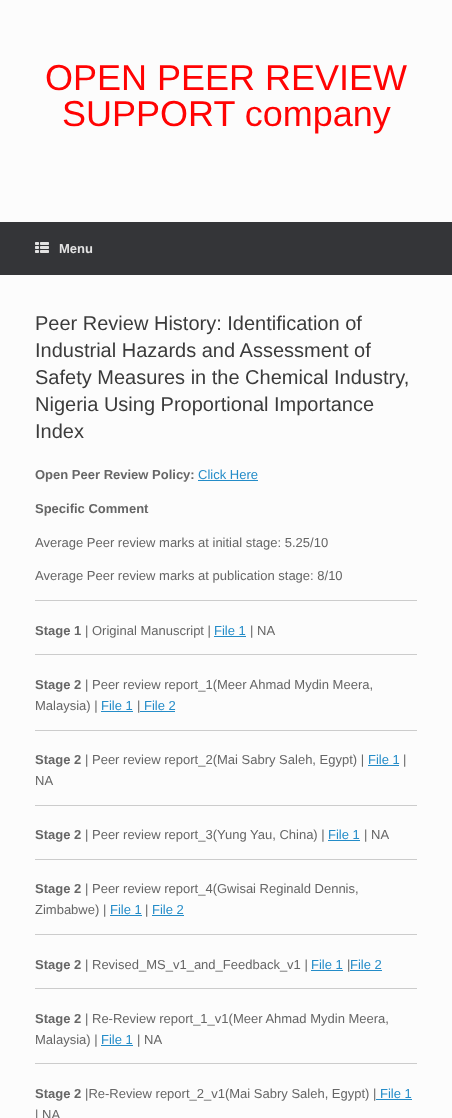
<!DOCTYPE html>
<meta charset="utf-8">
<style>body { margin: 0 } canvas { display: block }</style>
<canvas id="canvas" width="452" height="1118"></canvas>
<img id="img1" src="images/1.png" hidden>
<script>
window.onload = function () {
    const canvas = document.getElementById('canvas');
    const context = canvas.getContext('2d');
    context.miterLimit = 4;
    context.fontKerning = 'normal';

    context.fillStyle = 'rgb(252, 252, 252)';
    context.fillRect(0, 0, 452, 1118);
    context.fillStyle = 'rgb(52, 53, 56)';
    context.fillRect(0, 222, 452, 53);
    context.drawImage(document.getElementById('img1'), 35, 242, 14, 11);
    context.fillStyle = 'rgb(36, 140, 200)';
    context.fillRect(198, 480, 60, 1);
    context.fillStyle = 'rgb(204, 204, 204)';
    context.fillRect(35, 600, 382, 1);
    context.fillStyle = 'rgb(36, 140, 200)';
    context.fillRect(214, 636, 32, 1);
    context.fillStyle = 'rgb(204, 204, 204)';
    context.fillRect(35, 654, 382, 1);
    context.fillStyle = 'rgb(36, 140, 200)';
    context.fillRect(101, 711, 32, 1);
    context.fillRect(140, 711, 35, 1);
    context.fillStyle = 'rgb(204, 204, 204)';
    context.fillRect(35, 730, 382, 1);
    context.fillStyle = 'rgb(36, 140, 200)';
    context.fillRect(368, 765, 31, 1);
    context.fillStyle = 'rgb(204, 204, 204)';
    context.fillRect(35, 805, 382, 1);
    context.fillStyle = 'rgb(36, 140, 200)';
    context.fillRect(328, 840, 32, 1);
    context.fillStyle = 'rgb(204, 204, 204)';
    context.fillRect(35, 859, 382, 1);
    context.fillStyle = 'rgb(36, 140, 200)';
    context.fillRect(110, 915, 32, 1);
    context.fillRect(152, 915, 32, 1);
    context.fillStyle = 'rgb(204, 204, 204)';
    context.fillRect(35, 934, 382, 1);
    context.fillStyle = 'rgb(36, 140, 200)';
    context.fillRect(311, 970, 32, 1);
    context.fillRect(350, 970, 32, 1);
    context.fillStyle = 'rgb(204, 204, 204)';
    context.fillRect(35, 988, 382, 1);
    context.fillStyle = 'rgb(36, 140, 200)';
    context.fillRect(101, 1045, 32, 1);
    context.fillStyle = 'rgb(204, 204, 204)';
    context.fillRect(35, 1063, 382, 1);
    context.fillStyle = 'rgb(36, 140, 200)';
    context.fillRect(376, 1099, 36, 1);
    context.font = '36px Liberation Sans';
    context.fillStyle = 'rgb(255, 3, 3)';
    context.fillText('OPEN PEER REVIEW', 45, 90);
    context.fillText('SUPPORT company', 62, 126);
    context.font = 'bold 13px Liberation Sans';
    context.fillStyle = 'rgb(226, 226, 226)';
    context.fillText('Menu', 59, 253);
    context.font = '20px Liberation Sans';
    context.fillStyle = 'rgb(59, 59, 59)';
    context.fillText('Peer Review History: Identification of', 35, 330);
    context.fillText('Industrial Hazards and Assessment of', 35, 357);
    context.fillText('Safety Measures in the Chemical Industry,', 35, 384);
    context.fillText('Nigeria Using Proportional Importance', 35, 411);
    context.fillText('Index', 35, 438);
    context.font = 'bold 13px Liberation Sans';
    context.fillStyle = 'rgb(102, 102, 102)';
    context.fillText('Open Peer Review Policy:', 35, 479);
    context.font = '13px Liberation Sans';
    context.fillStyle = 'rgb(36, 140, 200)';
    context.fillText('Click Here', 198, 479);
    context.font = 'bold 13px Liberation Sans';
    context.fillStyle = 'rgb(102, 102, 102)';
    context.fillText('Specific Comment', 35, 513);
    context.font = '13px Liberation Sans';
    context.fillText('Average Peer review marks at initial stage: 5.25/10', 35, 547);
    context.fillText('Average Peer review marks at publication stage: 8/10', 35, 580);
    context.font = 'bold 13px Liberation Sans';
    context.fillText('Stage 1', 35, 635);
    context.font = '13px Liberation Sans';
    context.fillText('| Original Manuscript |', 85, 635);
    context.fillStyle = 'rgb(36, 140, 200)';
    context.fillText('File 1', 214, 635);
    context.fillStyle = 'rgb(102, 102, 102)';
    context.fillText('| NA', 250, 635);
    context.font = 'bold 13px Liberation Sans';
    context.fillText('Stage 2', 35, 689);
    context.font = '13px Liberation Sans';
    context.fillText('| Peer review report_1(Meer Ahmad Mydin Meera,', 85, 689);
    context.fillText('Malaysia) |', 35, 710);
    context.fillStyle = 'rgb(36, 140, 200)';
    context.fillText('File 1', 101, 710);
    context.fillStyle = 'rgb(102, 102, 102)';
    context.fillText('|', 137, 710);
    context.fillStyle = 'rgb(36, 140, 200)';
    context.fillText('File 2', 144, 710);
    context.font = 'bold 13px Liberation Sans';
    context.fillStyle = 'rgb(102, 102, 102)';
    context.fillText('Stage 2', 35, 764);
    context.font = '13px Liberation Sans';
    context.fillText('| Peer review report_2(Mai Sabry Saleh, Egypt) |', 85, 764);
    context.fillStyle = 'rgb(36, 140, 200)';
    context.fillText('File 1', 368, 764);
    context.fillStyle = 'rgb(102, 102, 102)';
    context.fillText('|', 403, 764);
    context.fillText('NA', 35, 785);
    context.font = 'bold 13px Liberation Sans';
    context.fillText('Stage 2', 35, 839);
    context.font = '13px Liberation Sans';
    context.fillText('| Peer review report_3(Yung Yau, China) |', 85, 839);
    context.fillStyle = 'rgb(36, 140, 200)';
    context.fillText('File 1', 328, 839);
    context.fillStyle = 'rgb(102, 102, 102)';
    context.fillText('| NA', 364, 839);
    context.font = 'bold 13px Liberation Sans';
    context.fillText('Stage 2', 35, 893);
    context.font = '13px Liberation Sans';
    context.fillText('| Peer review report_4(Gwisai Reginald Dennis,', 85, 893);
    context.fillText('Zimbabwe) |', 35, 914);
    context.fillStyle = 'rgb(36, 140, 200)';
    context.fillText('File 1', 110, 914);
    context.fillStyle = 'rgb(102, 102, 102)';
    context.fillText('|', 145, 914);
    context.fillStyle = 'rgb(36, 140, 200)';
    context.fillText('File 2', 152, 914);
    context.font = 'bold 13px Liberation Sans';
    context.fillStyle = 'rgb(102, 102, 102)';
    context.fillText('Stage 2', 35, 969);
    context.font = '13px Liberation Sans';
    context.fillText('| Revised_MS_v1_and_Feedback_v1 |', 85, 969);
    context.fillStyle = 'rgb(36, 140, 200)';
    context.fillText('File 1', 311, 969);
    context.fillStyle = 'rgb(102, 102, 102)';
    context.fillText('|', 347, 969);
    context.fillStyle = 'rgb(36, 140, 200)';
    context.fillText('File 2', 350, 969);
    context.font = 'bold 13px Liberation Sans';
    context.fillStyle = 'rgb(102, 102, 102)';
    context.fillText('Stage 2', 35, 1023);
    context.font = '13px Liberation Sans';
    context.fillText('| Re-Review report_1_v1(Meer Ahmad Mydin Meera,', 85, 1023);
    context.fillText('Malaysia) |', 35, 1044);
    context.fillStyle = 'rgb(36, 140, 200)';
    context.fillText('File 1', 101, 1044);
    context.fillStyle = 'rgb(102, 102, 102)';
    context.fillText('| NA', 137, 1044);
    context.font = 'bold 13px Liberation Sans';
    context.fillText('Stage 2', 35, 1098);
    context.font = '13px Liberation Sans';
    context.fillText('|Re-Review report_2_v1(Mai Sabry Saleh, Egypt) |', 85, 1098);
    context.fillStyle = 'rgb(36, 140, 200)';
    context.fillText('File 1', 380, 1098);
    context.fillStyle = 'rgb(102, 102, 102)';
    context.fillText('| NA', 35, 1119);
};
</script>
